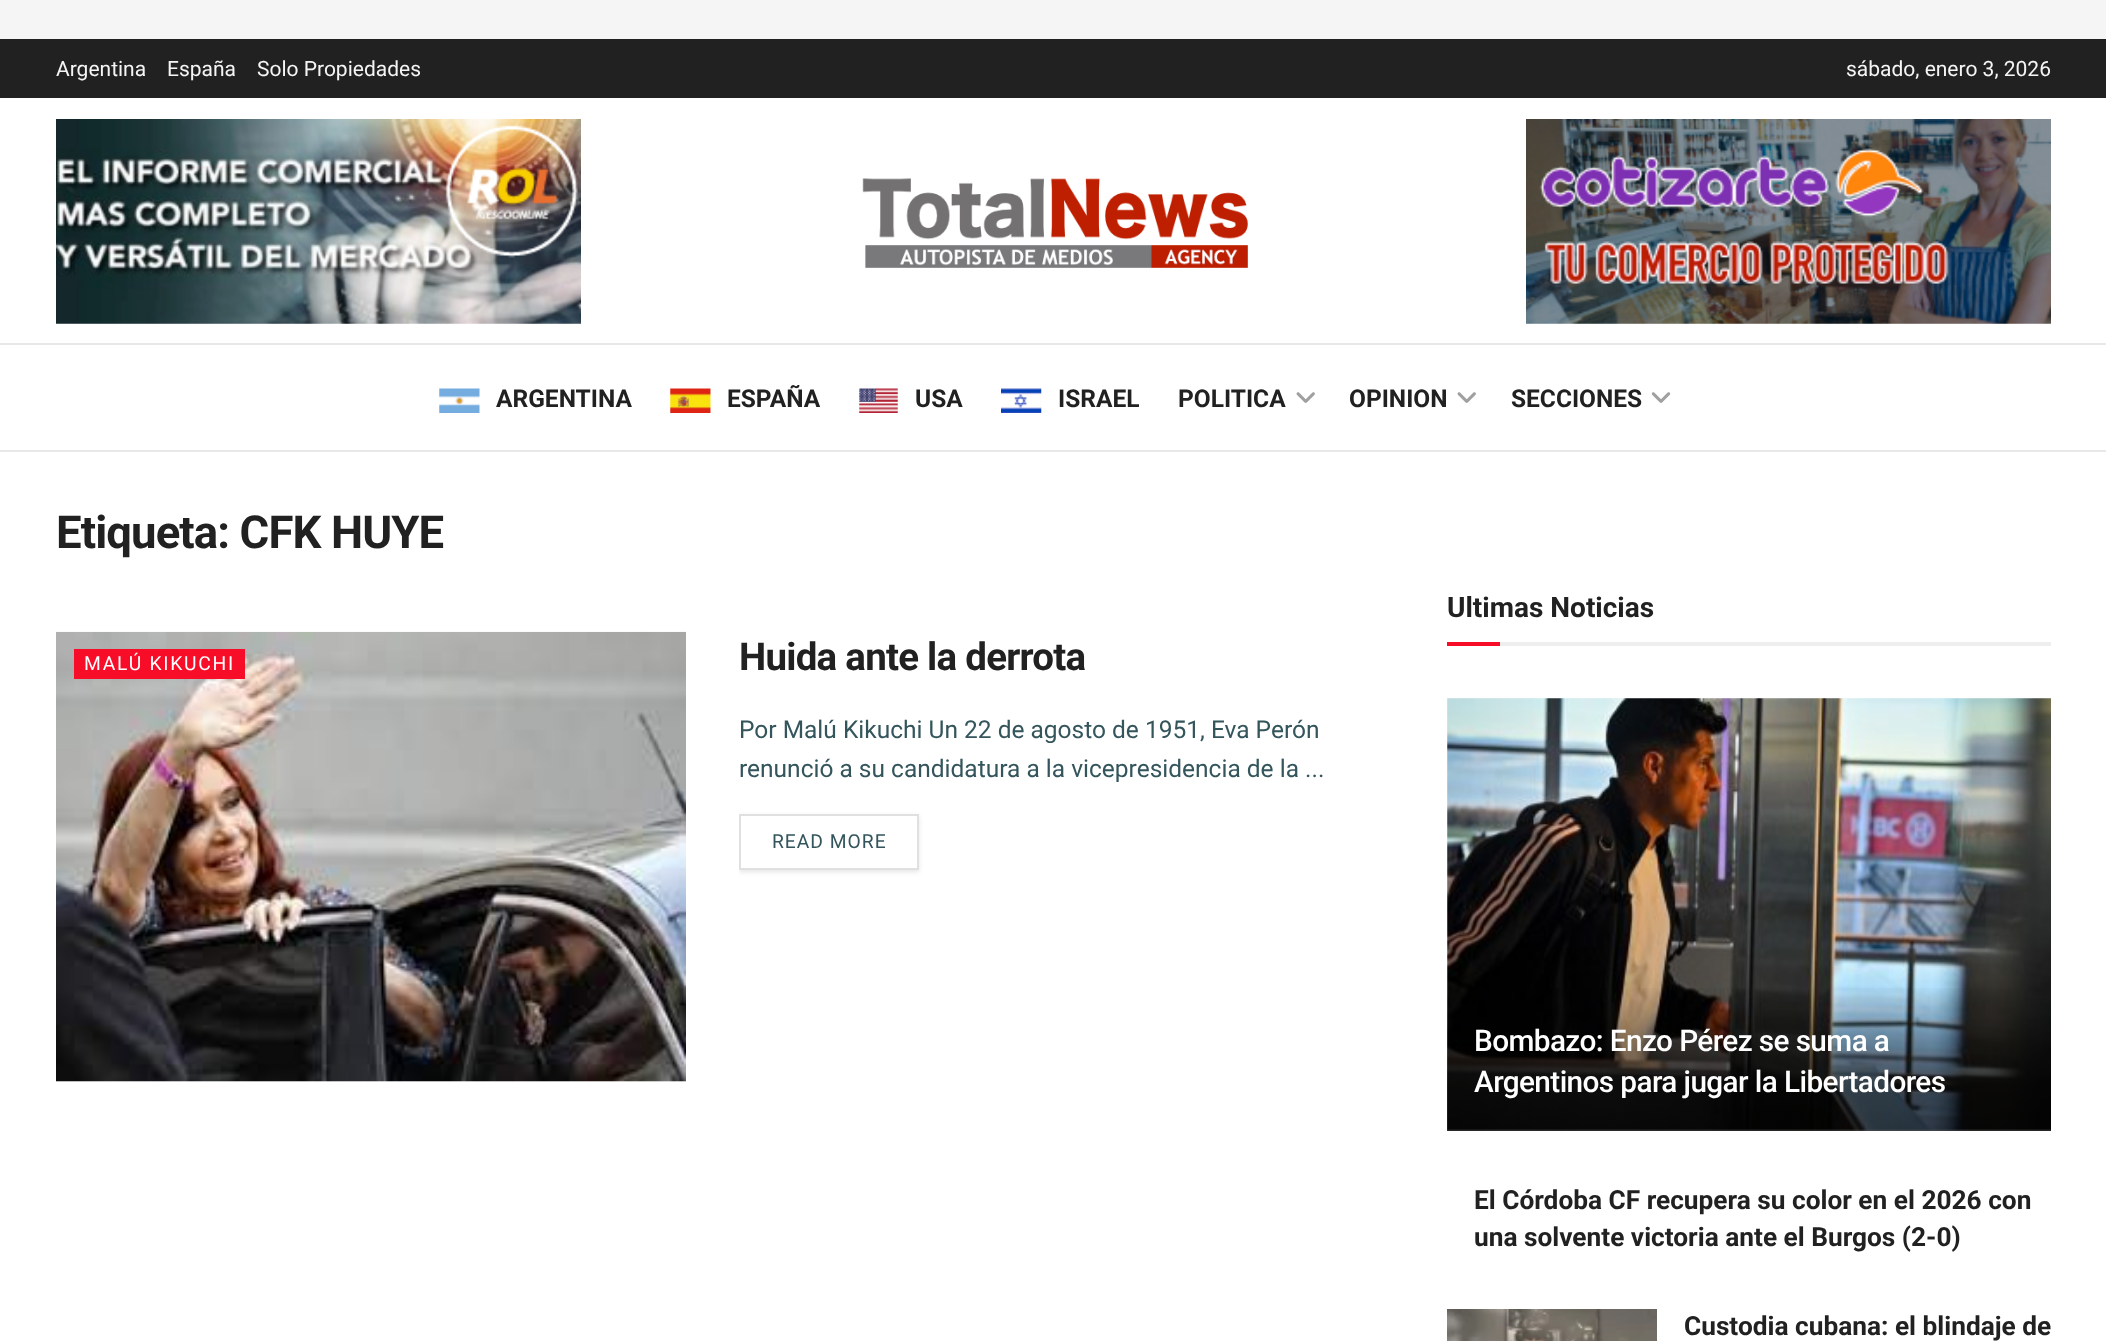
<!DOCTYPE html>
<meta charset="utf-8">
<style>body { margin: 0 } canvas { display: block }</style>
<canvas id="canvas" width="2106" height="1341"></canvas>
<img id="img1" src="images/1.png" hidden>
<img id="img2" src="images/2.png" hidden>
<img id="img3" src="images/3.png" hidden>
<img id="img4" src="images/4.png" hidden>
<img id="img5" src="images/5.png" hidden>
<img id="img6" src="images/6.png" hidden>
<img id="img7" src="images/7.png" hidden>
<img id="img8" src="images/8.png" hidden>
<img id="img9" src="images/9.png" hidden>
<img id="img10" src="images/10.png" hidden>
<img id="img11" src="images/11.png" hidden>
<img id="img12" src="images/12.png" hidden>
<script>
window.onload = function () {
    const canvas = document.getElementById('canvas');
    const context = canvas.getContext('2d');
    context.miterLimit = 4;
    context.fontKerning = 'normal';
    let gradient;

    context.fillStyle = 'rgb(255, 255, 255)';
    context.fillRect(0, 0, 2106, 1341);
    context.fillStyle = 'rgb(245, 245, 245)';
    context.fillRect(0, 0, 2106, 39);
    context.fillStyle = 'rgb(33, 33, 33)';
    context.fillRect(0, 39, 2106, 59);
    context.drawImage(document.getElementById('img1'), 56, 119, 525, 205);
    context.drawImage(document.getElementById('img2'), 862, 178, 386, 90);
    context.drawImage(document.getElementById('img3'), 1526, 119, 525, 205);
    context.fillStyle = 'rgb(232, 232, 232)';
    context.fillRect(0, 343, 2106, 2);
    context.fillRect(0, 450, 2106, 2);
    context.drawImage(document.getElementById('img4'), 439, 388, 41, 25);
    context.drawImage(document.getElementById('img5'), 670, 388, 41, 25);
    context.drawImage(document.getElementById('img6'), 859, 388, 39, 25);
    context.drawImage(document.getElementById('img7'), 1001, 388, 41, 25);
    context.drawImage(document.getElementById('img8'), 1296, 392, 19, 11);
    context.drawImage(document.getElementById('img8'), 1457, 392, 19, 11);
    context.drawImage(document.getElementById('img9'), 1651, 392, 20, 11);
    context.fillStyle = 'rgb(247, 247, 247)';
    context.fillRect(56, 1081, 630, 1);
    context.drawImage(document.getElementById('img10'), 56, 631, 630, 451);
    context.fillStyle = 'rgb(247, 13, 40)';
    context.fillRect(74, 649, 171, 30);
    context.save();
    context.beginPath();
    context.rect(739, 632, 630, 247);
    context.clip();
    context.beginPath();
    context.moveTo(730, 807);
    context.lineTo(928, 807);
    context.lineTo(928, 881);
    context.lineTo(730, 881);
    context.closePath();
    context.moveTo(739, 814);
    context.lineTo(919, 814);
    context.lineTo(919, 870);
    context.lineTo(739, 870);
    context.closePath();
    context.clip('evenodd');
    context.fillStyle = 'rgba(0, 0, 0, 0.1)';
    context.filter = 'blur(2.5px)';
    context.beginPath();
    context.rect(739, 816, 180, 56);
    context.fill();
    context.filter = 'none';
    context.restore();
    context.strokeStyle = 'rgb(224, 224, 224)';
    context.lineWidth = 2;
    context.strokeRect(740, 815, 178, 54);
    context.fillStyle = 'rgb(238, 238, 238)';
    context.fillRect(1500, 642, 551, 4);
    context.fillStyle = 'rgb(247, 13, 40)';
    context.fillRect(1447, 642, 53, 4);
    context.fillStyle = 'rgb(247, 247, 247)';
    context.fillRect(1447, 698, 604, 433);
    context.drawImage(document.getElementById('img11'), 1447, 698, 604, 433);
    gradient = context.createLinearGradient(1749, 985, 1749, 1131);
    gradient.addColorStop(0, 'rgba(0, 0, 0, 0)');
    gradient.addColorStop(0.7, 'rgba(0, 0, 0, 0.65)');
    context.fillStyle = gradient;
    context.fillRect(1447, 988, 604, 143);
    context.drawImage(document.getElementById('img12'), 1447, 1309, 210, 32);
    context.font = '21px Roboto';
    context.fillStyle = 'rgb(245, 245, 245)';
    context.fillText('Argentina', 56, 76);
    context.fillText('España', 167, 76);
    context.fillText('Solo Propiedades', 257, 76);
    context.fillText('sábado, enero 3, 2026', 1846, 76);
    context.font = 'bold 24.5px Roboto';
    context.fillStyle = 'rgb(33, 33, 33)';
    context.fillText('ARGENTINA', 496, 407);
    context.fillText('ESPAÑA', 727, 407);
    context.fillText('USA', 915, 407);
    context.fillText('ISRAEL', 1058, 407);
    context.fillText('POLITICA', 1178, 407);
    context.fillText('OPINION', 1349, 407);
    context.fillText('SECCIONES', 1511, 407);
    context.letterSpacing = '-0.9px';
    context.font = 'bold 45.5px Roboto';
    context.fillText('Etiqueta: CFK HUYE', 56, 548);
    context.letterSpacing = '1.75px';
    context.font = '19.25px Roboto';
    context.fillStyle = 'rgb(255, 255, 255)';
    context.fillText('MALÚ KIKUCHI', 84, 670);
    context.letterSpacing = '-0.75px';
    context.font = 'bold 38.5px Roboto';
    context.fillStyle = 'rgb(33, 33, 33)';
    context.fillText('Huida ante la derrota', 739, 670);
    context.letterSpacing = '0px';
    context.font = '24.5px Roboto';
    context.fillStyle = 'rgb(51, 85, 91)';
    context.fillText('Por Malú Kikuchi Un 22 de agosto de 1951, Eva Perón', 739, 738);
    context.fillText('renunció a su candidatura a la vicepresidencia de la ...', 739, 777);
    context.letterSpacing = '1px';
    context.font = '19.25px Roboto';
    context.fillText('READ MORE', 772, 848);
    context.letterSpacing = '0px';
    context.font = 'bold 28px Roboto';
    context.fillStyle = 'rgb(33, 33, 33)';
    context.fillText('Ultimas Noticias', 1447, 617);
    context.letterSpacing = '-0.6px';
    context.font = '500 29.75px Roboto';
    context.fillStyle = 'rgb(255, 255, 255)';
    context.fillText('Bombazo: Enzo Pérez se suma a', 1474, 1051);
    context.fillText('Argentinos para jugar la Libertadores', 1474, 1092);
    context.letterSpacing = '0px';
    context.font = 'bold 26.25px Roboto';
    context.fillStyle = 'rgb(33, 33, 33)';
    context.fillText('El Córdoba CF recupera su color en el 2026 con', 1474, 1209);
    context.fillText('una solvente victoria ante el Burgos (2-0)', 1474, 1246);
    context.fillText('Custodia cubana: el blindaje de', 1684, 1335);
};
</script>
